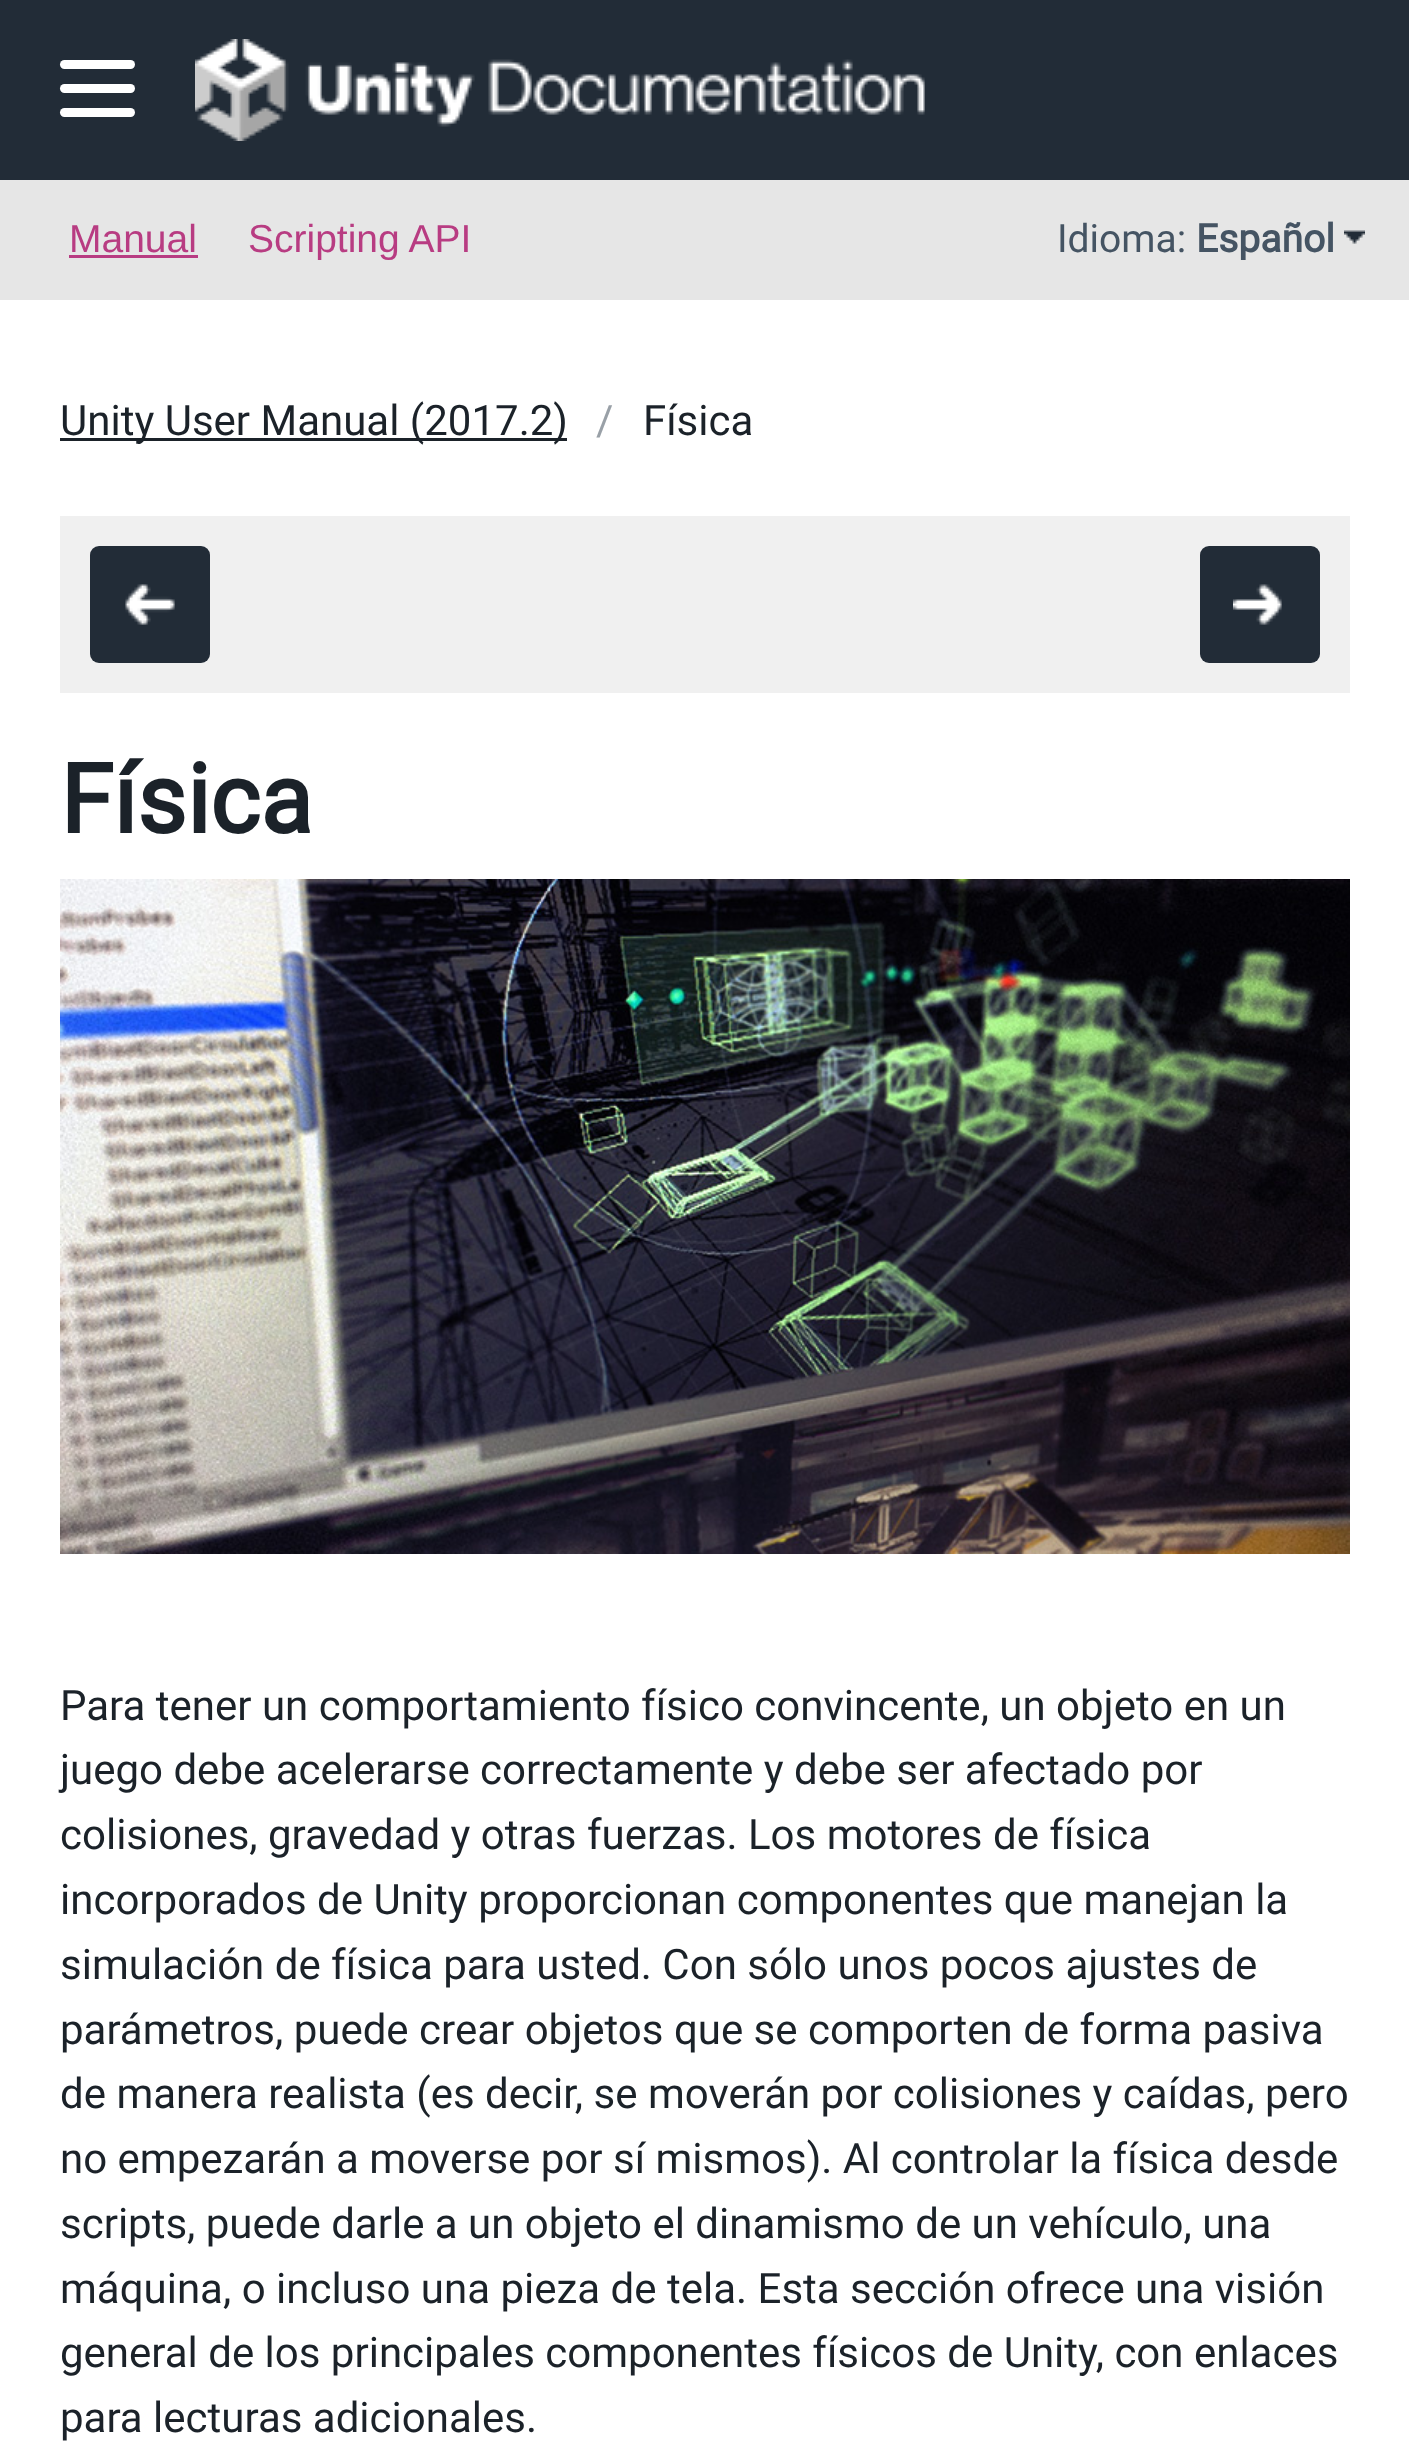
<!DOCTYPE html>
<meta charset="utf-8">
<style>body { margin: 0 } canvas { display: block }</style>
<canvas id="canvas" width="1409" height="2455"></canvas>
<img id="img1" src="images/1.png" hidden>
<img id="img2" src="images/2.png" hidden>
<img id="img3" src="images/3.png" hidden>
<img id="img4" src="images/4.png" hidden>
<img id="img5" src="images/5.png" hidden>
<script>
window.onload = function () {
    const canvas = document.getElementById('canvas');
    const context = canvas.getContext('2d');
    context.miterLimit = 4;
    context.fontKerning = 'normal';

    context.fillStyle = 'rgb(255, 255, 255)';
    context.fillRect(0, 0, 1409, 2455);
    context.fillStyle = 'rgb(34, 44, 55)';
    context.fillRect(0, 0, 1409, 180);
    context.fillStyle = 'rgb(255, 255, 255)';
    context.beginPath();
    context.roundRect(60, 60, 75, 9, 4.5);
    context.fill();
    context.beginPath();
    context.roundRect(60, 84, 75, 9, 4.5);
    context.fill();
    context.beginPath();
    context.roundRect(60, 108, 75, 9, 4.5);
    context.fill();
    context.drawImage(document.getElementById('img1'), 195, 39, 730, 102);
    context.fillStyle = 'rgb(230, 230, 230)';
    context.fillRect(0, 180, 1409, 120);
    context.fillStyle = 'rgb(184, 60, 130)';
    context.fillRect(69, 255, 129, 3);
    context.drawImage(document.getElementById('img2'), 1344, 230, 21, 14);
    context.fillStyle = 'rgb(27, 34, 41)';
    context.fillRect(60, 438, 507, 3);
    context.fillStyle = 'rgb(240, 240, 240)';
    context.fillRect(60, 516, 1290, 177);
    context.fillStyle = 'rgb(34, 44, 55)';
    context.beginPath();
    context.roundRect(90, 546, 120, 117, 9);
    context.fill();
    context.drawImage(document.getElementById('img3'), 125, 584, 50, 41);
    context.beginPath();
    context.roundRect(1200, 546, 120, 117, 9);
    context.fill();
    context.drawImage(document.getElementById('img4'), 1233, 584, 49, 41);
    context.drawImage(document.getElementById('img5'), 60, 879, 1290, 675);
    context.font = '39px Liberation Sans';
    context.fillStyle = 'rgb(184, 60, 130)';
    context.fillText('Manual', 69, 252);
    context.fillText('Scripting API', 248, 252);
    context.font = '39px Roboto';
    context.fillStyle = 'rgb(69, 84, 99)';
    context.fillText('Idioma:', 1057, 252);
    context.font = 'bold 39px Roboto';
    context.fillText('Español', 1196, 252);
    context.font = '42px Roboto';
    context.fillStyle = 'rgb(27, 34, 41)';
    context.fillText('Unity User Manual (2017.2)', 60, 435);
    context.fillStyle = 'rgb(153, 160, 167)';
    context.fillText('/', 596, 435);
    context.fillStyle = 'rgb(27, 34, 41)';
    context.fillText('Física', 643, 435);
    context.font = 'bold 96px Roboto';
    context.fillText('Física', 60, 833);
    context.font = '42px Roboto';
    context.fillText('Para tener un comportamiento físico convincente, un objeto en un', 60, 1720);
    context.fillText('juego debe acelerarse correctamente y debe ser afectado por', 60, 1784);
    context.fillText('colisiones, gravedad y otras fuerzas. Los motores de física', 60, 1849);
    context.fillText('incorporados de Unity proporcionan componentes que manejan la', 60, 1914);
    context.fillText('simulación de física para usted. Con sólo unos pocos ajustes de', 60, 1979);
    context.fillText('parámetros, puede crear objetos que se comporten de forma pasiva', 60, 2044);
    context.fillText('de manera realista (es decir, se moverán por colisiones y caídas, pero', 60, 2108);
    context.fillText('no empezarán a moverse por sí mismos). Al controlar la física desde', 60, 2173);
    context.fillText('scripts, puede darle a un objeto el dinamismo de un vehículo, una', 60, 2238);
    context.fillText('máquina, o incluso una pieza de tela. Esta sección ofrece una visión', 60, 2303);
    context.fillText('general de los principales componentes físicos de Unity, con enlaces', 60, 2367);
    context.fillText('para lecturas adicionales.', 60, 2432);
};
</script>
